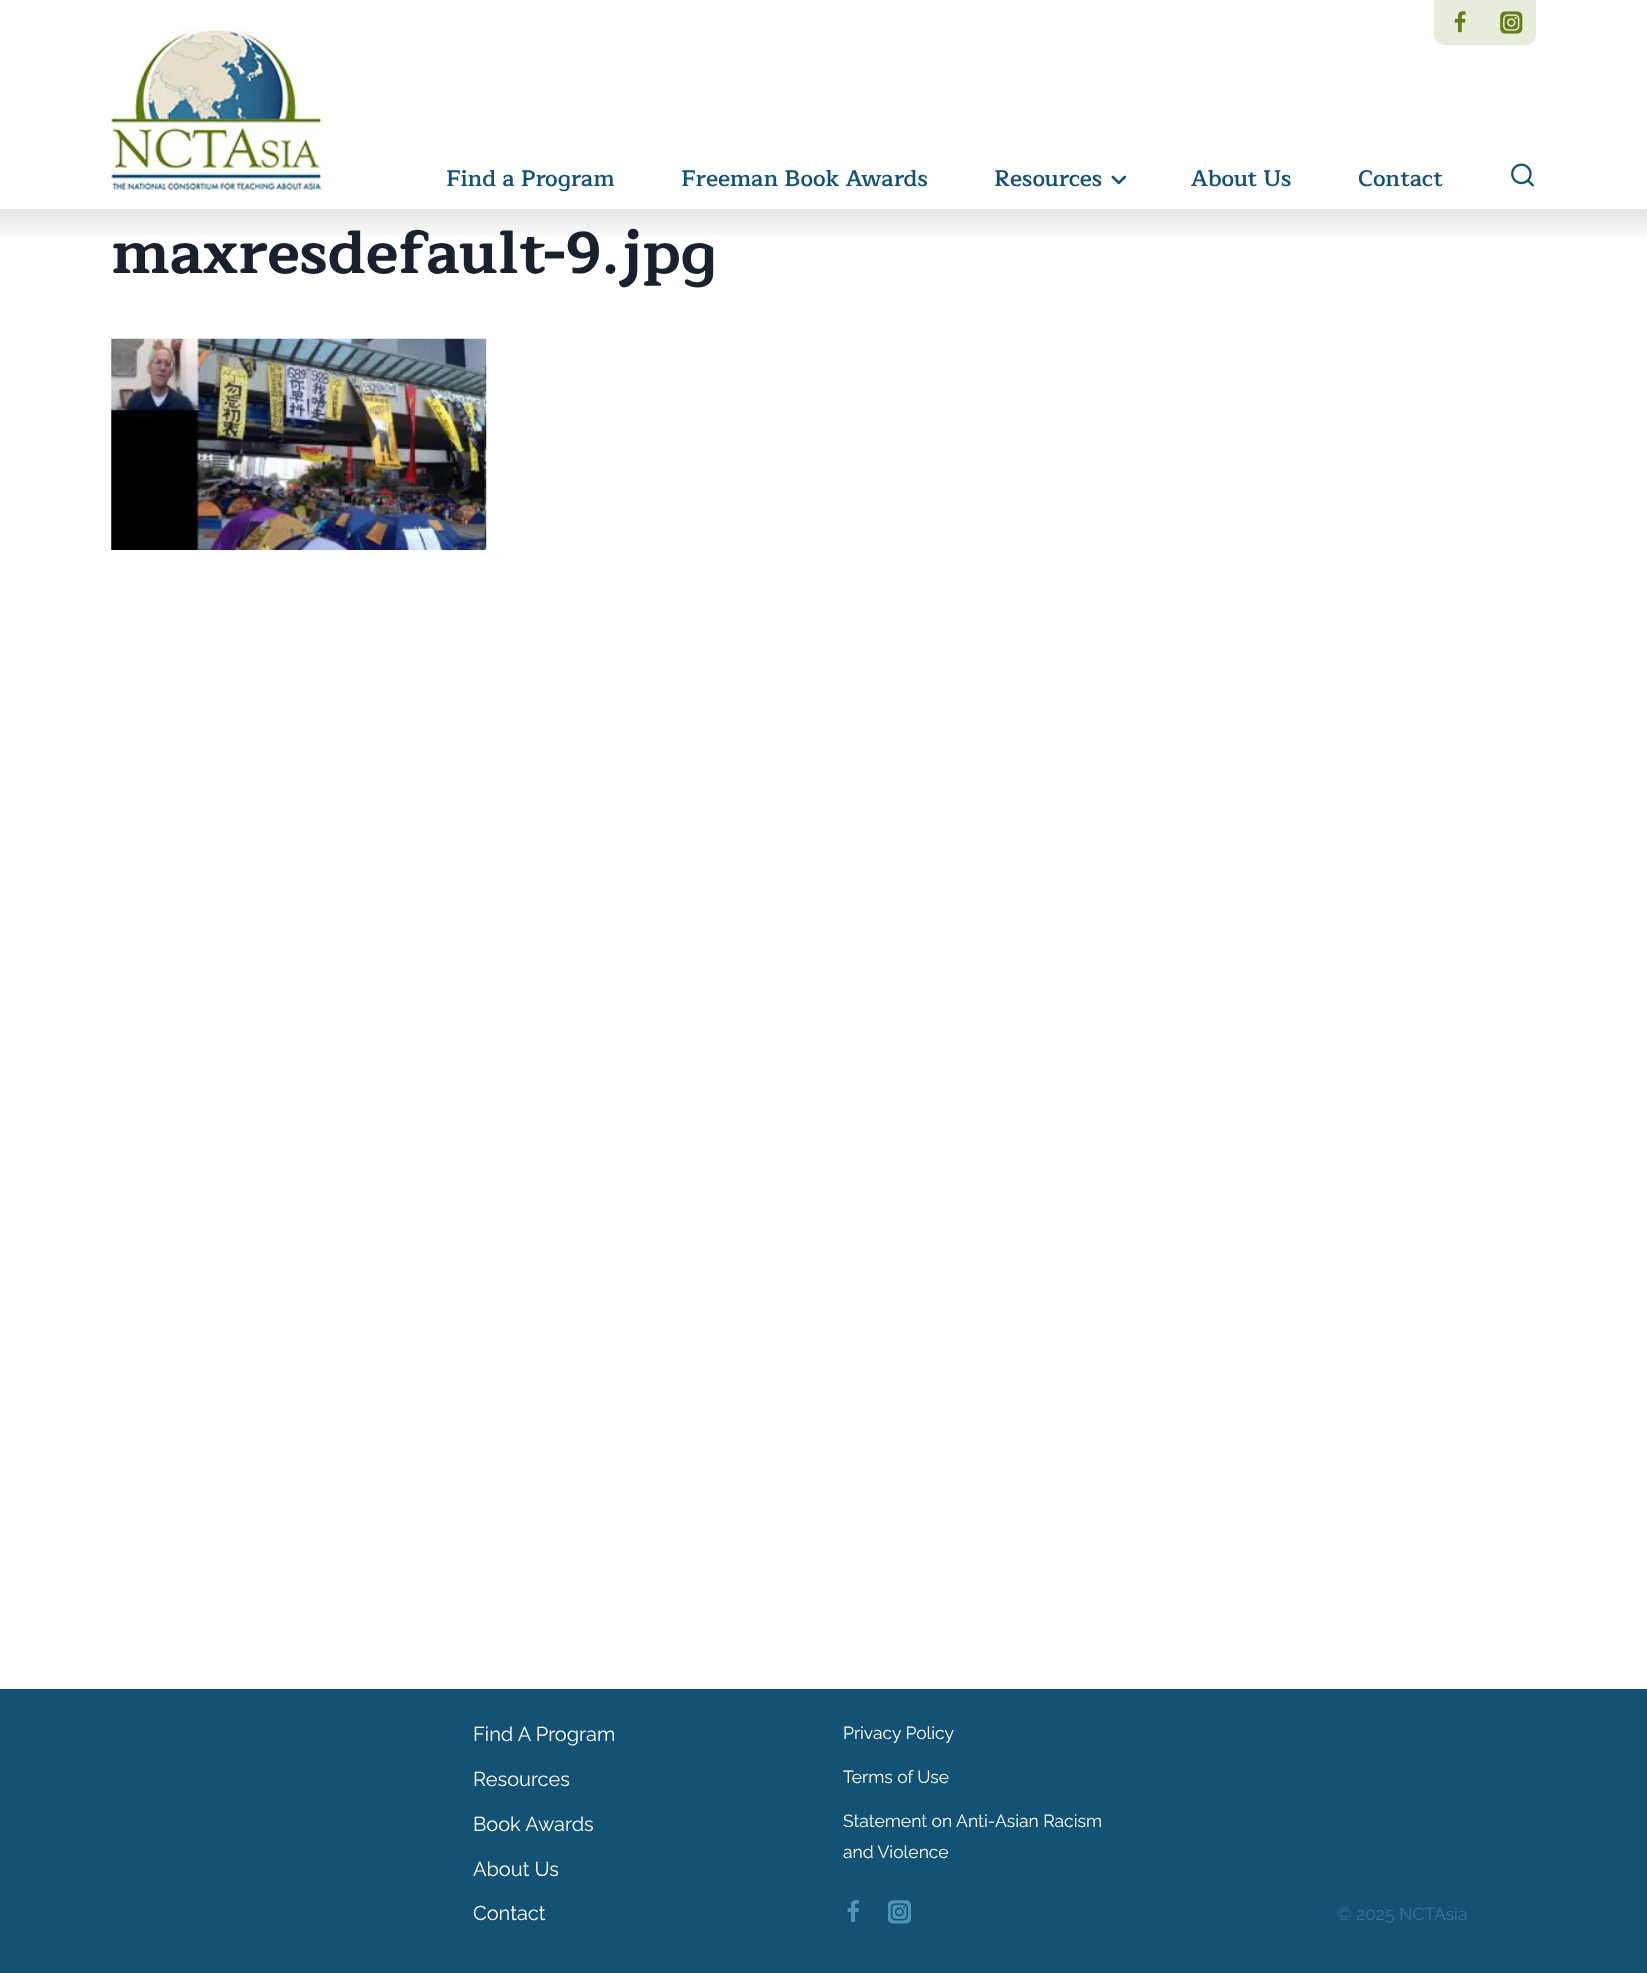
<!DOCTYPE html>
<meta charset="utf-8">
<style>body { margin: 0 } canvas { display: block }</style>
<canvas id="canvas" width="1647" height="1973"></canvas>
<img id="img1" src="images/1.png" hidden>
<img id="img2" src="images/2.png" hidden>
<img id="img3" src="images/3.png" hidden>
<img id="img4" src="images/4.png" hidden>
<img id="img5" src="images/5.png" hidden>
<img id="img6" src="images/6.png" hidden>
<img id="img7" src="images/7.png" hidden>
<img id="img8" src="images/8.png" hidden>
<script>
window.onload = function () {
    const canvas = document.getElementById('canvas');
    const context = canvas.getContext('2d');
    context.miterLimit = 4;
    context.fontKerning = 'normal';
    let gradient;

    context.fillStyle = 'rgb(19, 82, 117)';
    context.fillRect(0, 0, 1647, 1973);
    context.fillStyle = 'rgb(255, 255, 255)';
    context.fillRect(0, 0, 1647, 1689);
    context.fillStyle = 'rgb(232, 236, 220)';
    context.beginPath();
    context.roundRect(1434, 0, 51, 45, [0, 0, 0, 10]);
    context.fill();
    context.drawImage(document.getElementById('img1'), 1454, 11, 12, 22);
    context.beginPath();
    context.roundRect(1485, 0, 51, 45, [0, 0, 10, 0]);
    context.fill();
    context.drawImage(document.getElementById('img2'), 1500, 11, 23, 23);
    context.drawImage(document.getElementById('img3'), 111, 30, 211, 160);
    context.drawImage(document.getElementById('img4'), 1111, 175, 15, 10);
    context.drawImage(document.getElementById('img5'), 1511, 163, 23, 24);
    gradient = context.createLinearGradient(824, 243, 824, 209);
    gradient.addColorStop(0, 'rgba(0, 0, 0, 0)');
    gradient.addColorStop(1, 'rgba(0, 0, 0, 0.1)');
    context.fillStyle = gradient;
    context.fillRect(0, 209, 1647, 27);
    context.drawImage(document.getElementById('img6'), 111, 338, 376, 212);
    context.drawImage(document.getElementById('img7'), 847, 1900, 12, 23);
    context.drawImage(document.getElementById('img8'), 888, 1900, 23, 24);
    context.font = '600 22.5px Maitree';
    context.fillStyle = 'rgb(19, 82, 117)';
    context.fillText('Find a Program', 446, 186);
    context.fillText('Freeman Book Awards', 681, 186);
    context.fillText('Resources', 994, 186);
    context.fillText('About Us', 1191, 186);
    context.fillText('Contact', 1358, 186);
    context.font = 'bold 60px Maitree';
    context.fillStyle = 'rgb(26, 32, 44)';
    context.fillText('maxresdefault-9.jpg', 111, 273);
    context.font = '20px Raleway';
    context.fillStyle = 'rgb(255, 255, 255)';
    context.fillText('Find A Program', 473, 1741);
    context.fillText('Resources', 473, 1786);
    context.fillText('Book Awards', 473, 1831);
    context.fillText('About Us', 473, 1876);
    context.fillText('Contact', 473, 1920);
    context.font = '17.5px Raleway';
    context.fillText('Privacy Policy', 843, 1739);
    context.fillText('Terms of Use', 843, 1783);
    context.fillText('Statement on Anti-Asian Racism', 843, 1827);
    context.fillText('and Violence', 843, 1858);
    context.fillStyle = 'rgb(51, 117, 154)';
    context.fillText('© 2025 NCTAsia', 1337, 1920);
};
</script>
